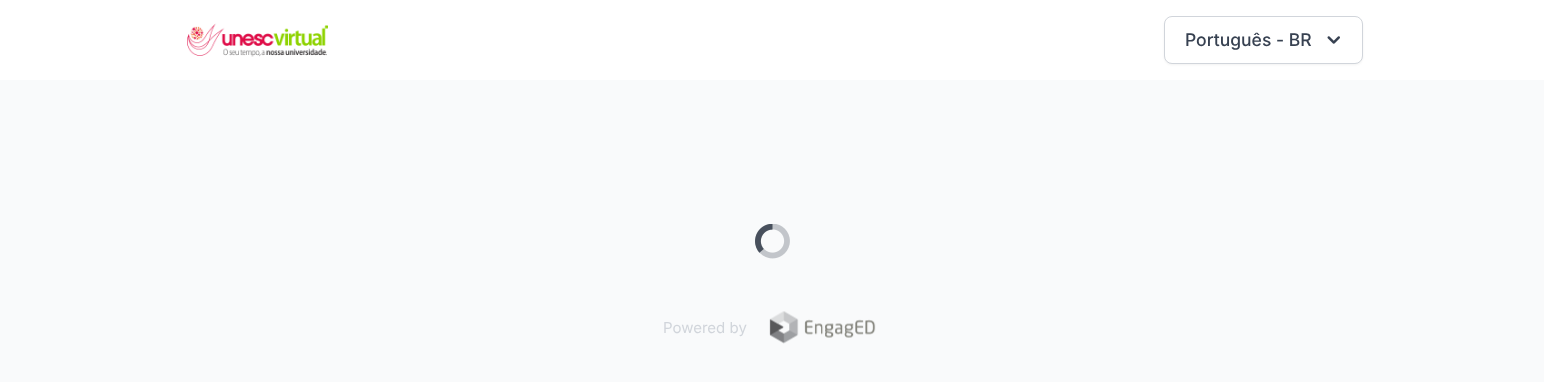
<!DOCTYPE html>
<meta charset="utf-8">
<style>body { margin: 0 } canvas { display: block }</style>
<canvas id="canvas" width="1544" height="382"></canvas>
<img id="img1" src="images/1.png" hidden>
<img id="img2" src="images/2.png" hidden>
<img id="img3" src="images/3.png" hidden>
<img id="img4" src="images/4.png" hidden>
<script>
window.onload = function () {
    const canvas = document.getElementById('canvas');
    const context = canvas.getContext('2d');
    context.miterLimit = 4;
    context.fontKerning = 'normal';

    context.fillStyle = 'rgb(255, 255, 255)';
    context.fillRect(0, 0, 1544, 382);
    context.drawImage(document.getElementById('img1'), 187, 23, 141, 34);
    context.fillStyle = 'rgba(0, 0, 0, 0.05)';
    context.filter = 'blur(1px)';
    context.beginPath();
    context.roundRect(1164, 18, 199, 47, 8);
    context.fill();
    context.filter = 'none';
    context.fillStyle = 'rgb(255, 255, 255)';
    context.beginPath();
    context.roundRect(1164.5, 16.5, 198, 47, 7.5);
    context.fill();
    context.strokeStyle = 'rgb(209, 213, 219)';
    context.stroke();
    context.drawImage(document.getElementById('img2'), 1327, 36, 13, 8);
    context.fillStyle = 'rgb(249, 250, 251)';
    context.fillRect(0, 80, 1544, 302);
    context.drawImage(document.getElementById('img3'), 755, 224, 35, 35);
    context.drawImage(document.getElementById('img4'), 769, 311, 107, 33);
    context.font = '500 17.5px Inter';
    context.fillStyle = 'rgb(55, 65, 81)';
    context.fillText('Português - BR', 1185, 46);
    context.font = '15px Inter';
    context.fillStyle = 'rgb(209, 213, 219)';
    context.fillText('Powered by', 663, 333);
};
</script>
